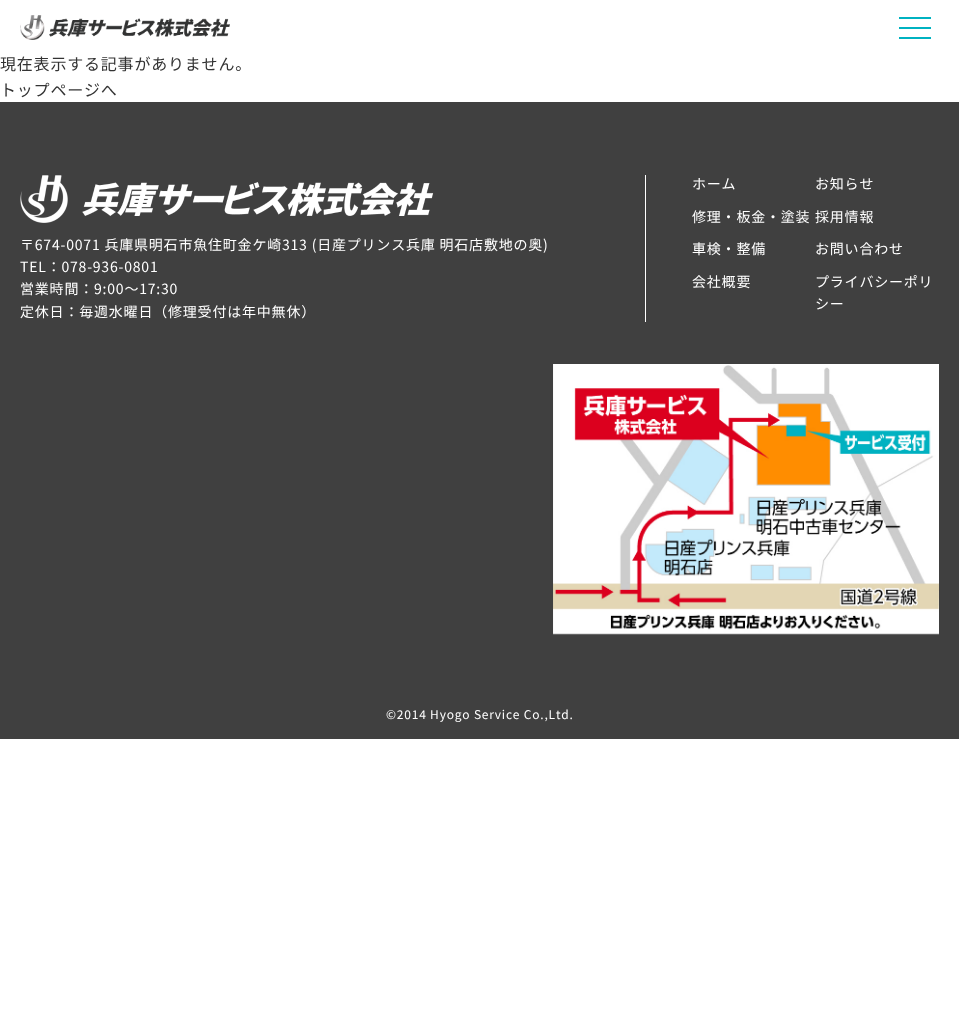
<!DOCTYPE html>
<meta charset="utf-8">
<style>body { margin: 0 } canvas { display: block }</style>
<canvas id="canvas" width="959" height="1030"></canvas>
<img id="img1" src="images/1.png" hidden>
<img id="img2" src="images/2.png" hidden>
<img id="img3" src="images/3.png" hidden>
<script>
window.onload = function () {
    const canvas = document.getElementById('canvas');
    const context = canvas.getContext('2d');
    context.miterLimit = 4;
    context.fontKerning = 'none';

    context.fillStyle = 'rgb(255, 255, 255)';
    context.fillRect(0, 0, 959, 1030);
    context.drawImage(document.getElementById('img1'), 20, 15, 210, 25);
    context.fillStyle = 'rgb(0, 178, 193)';
    context.fillRect(899, 17, 32, 2);
    context.fillRect(899, 27, 32, 2);
    context.fillRect(899, 37, 32, 2);
    context.fillStyle = 'rgb(64, 64, 64)';
    context.fillRect(0, 102, 959, 637);
    context.fillStyle = 'rgb(255, 255, 255)';
    context.fillRect(645, 175, 1, 147);
    context.drawImage(document.getElementById('img2'), 20, 175, 414, 48);
    context.drawImage(document.getElementById('img3'), 553, 364, 386, 271);
    context.letterSpacing = '0.8px';
    context.font = '16px Noto Sans JP';
    context.fillStyle = 'rgb(51, 51, 51)';
    context.fillText('現在表示する記事がありません。', 0, 70);
    context.fillText('トップページへ', 0, 96);
    context.font = '14px Noto Sans JP';
    context.fillStyle = 'rgb(255, 255, 255)';
    context.fillText('〒674-0071 兵庫県明石市魚住町金ケ崎313 (日産プリンス兵庫 明石店敷地の奥)', 20, 250);
    context.fillText('TEL：078-936-0801', 20, 272);
    context.fillText('営業時間：9:00〜17:30', 20, 294);
    context.fillText('定休日：毎週水曜日（修理受付は年中無休）', 20, 317);
    context.fillText('ホーム', 692, 189);
    context.fillText('お知らせ', 815, 189);
    context.fillText('修理・板金・塗装', 692, 222);
    context.fillText('採用情報', 815, 222);
    context.fillText('車検・整備', 692, 254);
    context.fillText('お問い合わせ', 815, 254);
    context.fillText('会社概要', 692, 287);
    context.fillText('プライバシーポリ', 815, 287);
    context.fillText('シー', 815, 309);
    context.font = '12px Noto Sans JP';
    context.fillText('©2014 Hyogo Service Co.,Ltd.', 386, 719);
};
</script>
